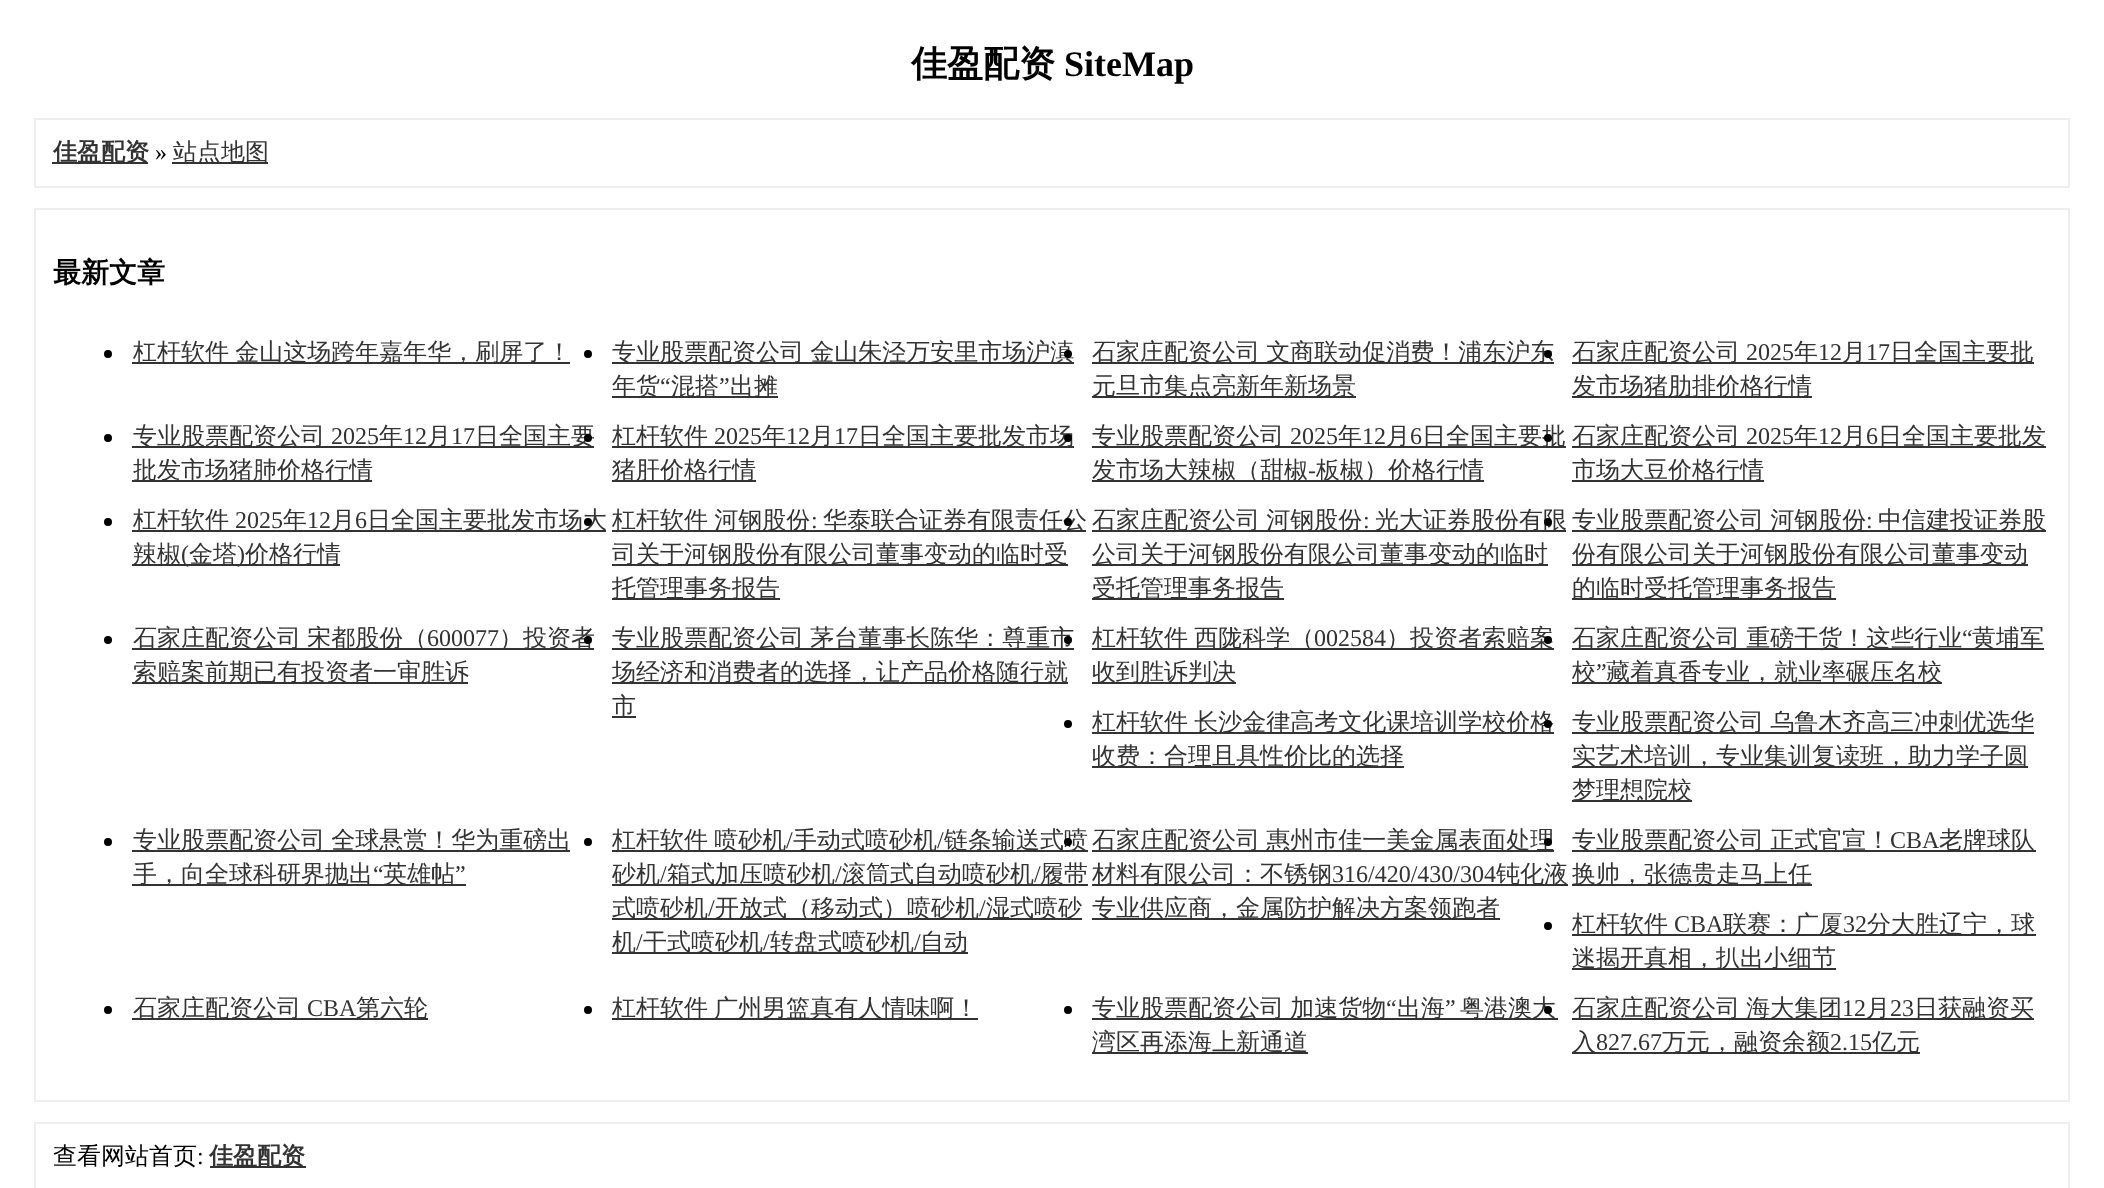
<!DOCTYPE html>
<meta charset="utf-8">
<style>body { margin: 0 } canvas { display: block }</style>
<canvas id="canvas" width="2104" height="1188"></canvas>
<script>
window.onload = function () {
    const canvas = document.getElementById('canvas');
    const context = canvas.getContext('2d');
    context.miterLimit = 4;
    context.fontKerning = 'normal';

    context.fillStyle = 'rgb(255, 255, 255)';
    context.fillRect(0, 0, 2104, 1188);
    context.strokeStyle = 'rgb(238, 238, 238)';
    context.lineWidth = 2;
    context.strokeRect(35, 119, 2034, 68);
    context.fillStyle = 'rgb(51, 51, 51)';
    context.fillRect(52, 162, 96, 2);
    context.fillRect(172, 162, 96, 2);
    context.strokeRect(35, 209, 2034, 892);
    context.fillStyle = 'rgb(0, 0, 0)';
    context.beginPath();
    context.arc(108, 354, 4, 0, 2 * Math.PI);
    context.fill();
    context.fillStyle = 'rgb(51, 51, 51)';
    context.fillRect(132, 362, 438, 2);
    context.fillStyle = 'rgb(0, 0, 0)';
    context.beginPath();
    context.arc(588, 354, 4, 0, 2 * Math.PI);
    context.fill();
    context.fillStyle = 'rgb(51, 51, 51)';
    context.fillRect(612, 362, 462, 2);
    context.fillRect(612, 396, 166, 2);
    context.fillRect(1092, 362, 462, 2);
    context.fillRect(1092, 396, 264, 2);
    context.fillRect(1572, 362, 462, 2);
    context.fillRect(1572, 396, 240, 2);
    context.fillStyle = 'rgb(0, 0, 0)';
    context.beginPath();
    context.arc(108, 438, 4, 0, 2 * Math.PI);
    context.fill();
    context.fillStyle = 'rgb(51, 51, 51)';
    context.fillRect(132, 446, 462, 2);
    context.fillRect(132, 480, 240, 2);
    context.fillRect(612, 446, 462, 2);
    context.fillRect(612, 480, 144, 2);
    context.fillRect(1092, 446, 474, 2);
    context.fillRect(1092, 480, 392, 2);
    context.fillRect(1572, 446, 474, 2);
    context.fillRect(1572, 480, 192, 2);
    context.fillStyle = 'rgb(0, 0, 0)';
    context.beginPath();
    context.arc(108, 522, 4, 0, 2 * Math.PI);
    context.fill();
    context.fillStyle = 'rgb(51, 51, 51)';
    context.fillRect(132, 530, 474, 2);
    context.fillRect(132, 564, 208, 2);
    context.fillRect(612, 530, 474, 2);
    context.fillRect(612, 564, 456, 2);
    context.fillRect(612, 598, 168, 2);
    context.fillRect(1092, 530, 474, 2);
    context.fillRect(1092, 564, 456, 2);
    context.fillRect(1092, 598, 192, 2);
    context.fillRect(1572, 530, 474, 2);
    context.fillRect(1572, 564, 456, 2);
    context.fillRect(1572, 598, 264, 2);
    context.fillStyle = 'rgb(0, 0, 0)';
    context.beginPath();
    context.arc(108, 640, 4, 0, 2 * Math.PI);
    context.fill();
    context.fillStyle = 'rgb(51, 51, 51)';
    context.fillRect(132, 648, 462, 2);
    context.fillRect(132, 682, 336, 2);
    context.fillRect(612, 648, 462, 2);
    context.fillRect(612, 682, 456, 2);
    context.fillRect(612, 716, 24, 2);
    context.fillRect(1092, 648, 462, 2);
    context.fillRect(1092, 682, 144, 2);
    context.fillRect(1572, 648, 472, 2);
    context.fillRect(1572, 682, 370, 2);
    context.fillStyle = 'rgb(0, 0, 0)';
    context.beginPath();
    context.arc(1068, 724, 4, 0, 2 * Math.PI);
    context.fill();
    context.fillStyle = 'rgb(51, 51, 51)';
    context.fillRect(1092, 732, 462, 2);
    context.fillRect(1092, 766, 312, 2);
    context.fillRect(1572, 732, 462, 2);
    context.fillRect(1572, 766, 456, 2);
    context.fillRect(1572, 800, 120, 2);
    context.fillStyle = 'rgb(0, 0, 0)';
    context.beginPath();
    context.arc(108, 842, 4, 0, 2 * Math.PI);
    context.fill();
    context.fillStyle = 'rgb(51, 51, 51)';
    context.fillRect(132, 850, 438, 2);
    context.fillRect(132, 884, 334, 2);
    context.fillStyle = 'rgb(0, 0, 0)';
    context.beginPath();
    context.arc(588, 842, 4, 0, 2 * Math.PI);
    context.fill();
    context.fillStyle = 'rgb(51, 51, 51)';
    context.fillRect(612, 850, 476, 2);
    context.fillRect(612, 884, 476, 2);
    context.fillRect(612, 918, 470, 2);
    context.fillRect(612, 952, 356, 2);
    context.fillRect(1092, 850, 462, 2);
    context.fillRect(1092, 884, 476, 2);
    context.fillRect(1092, 918, 408, 2);
    context.fillRect(1572, 850, 464, 2);
    context.fillRect(1572, 884, 240, 2);
    context.fillStyle = 'rgb(0, 0, 0)';
    context.beginPath();
    context.arc(1548, 926, 4, 0, 2 * Math.PI);
    context.fill();
    context.fillStyle = 'rgb(51, 51, 51)';
    context.fillRect(1572, 934, 464, 2);
    context.fillRect(1572, 968, 264, 2);
    context.fillStyle = 'rgb(0, 0, 0)';
    context.beginPath();
    context.arc(108, 1010, 4, 0, 2 * Math.PI);
    context.fill();
    context.fillStyle = 'rgb(51, 51, 51)';
    context.fillRect(132, 1018, 296, 2);
    context.fillStyle = 'rgb(0, 0, 0)';
    context.beginPath();
    context.arc(588, 1010, 4, 0, 2 * Math.PI);
    context.fill();
    context.fillStyle = 'rgb(51, 51, 51)';
    context.fillRect(612, 1018, 366, 2);
    context.fillRect(1092, 1018, 466, 2);
    context.fillStyle = 'rgb(0, 0, 0)';
    context.beginPath();
    context.arc(1068, 1010, 4, 0, 2 * Math.PI);
    context.fill();
    context.fillStyle = 'rgb(51, 51, 51)';
    context.fillRect(1092, 1052, 216, 2);
    context.fillRect(1572, 1018, 462, 2);
    context.fillRect(1572, 1052, 348, 2);
    context.strokeRect(35, 1123, 2034, 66);
    context.fillRect(210, 1166, 96, 2);
    context.font = 'bold 36px WenQuanYi Zen Hei';
    context.fillStyle = 'rgb(0, 0, 0)';
    context.fillText('佳盈配资', 911, 76);
    context.font = 'bold 36px Liberation Serif';
    context.fillText('SiteMap', 1064, 76);
    context.font = 'bold 24px WenQuanYi Zen Hei';
    context.fillStyle = 'rgb(51, 51, 51)';
    context.fillText('佳盈配资', 53, 160);
    context.font = '24px Liberation Serif';
    context.fillStyle = 'rgb(0, 0, 0)';
    context.fillText('»', 155, 160);
    context.font = '500 24px WenQuanYi Zen Hei';
    context.fillStyle = 'rgb(51, 51, 51)';
    context.fillText('站点地图', 173, 160);
    context.font = 'bold 28px WenQuanYi Zen Hei';
    context.fillStyle = 'rgb(0, 0, 0)';
    context.fillText('最新文章', 53, 282);
    context.wordSpacing = '-1px';
    context.font = '500 24px WenQuanYi Zen Hei';
    context.fillStyle = 'rgb(51, 51, 51)';
    context.fillText('杠杆软件 金山这场跨年嘉年华，刷屏了！', 133, 360);
    context.fillText('专业股票配资公司 金山朱泾万安里市场沪滇', 612, 360);
    context.wordSpacing = '0px';
    context.fillText('年货', 612, 394);
    context.font = '24px Liberation Serif';
    context.fillText('“', 660, 394);
    context.font = '500 24px WenQuanYi Zen Hei';
    context.fillText('混搭', 671, 394);
    context.font = '24px Liberation Serif';
    context.fillText('”', 719, 394);
    context.font = '500 24px WenQuanYi Zen Hei';
    context.fillText('出摊', 730, 394);
    context.fillStyle = 'rgb(0, 0, 0)';
    context.beginPath();
    context.arc(1068, 354, 4, 0, 2 * Math.PI);
    context.fill();
    context.wordSpacing = '-1px';
    context.fillStyle = 'rgb(51, 51, 51)';
    context.fillText('石家庄配资公司 文商联动促消费！浦东沪东', 1092, 360);
    context.wordSpacing = '0px';
    context.fillText('元旦市集点亮新年新场景', 1092, 394);
    context.fillStyle = 'rgb(0, 0, 0)';
    context.beginPath();
    context.arc(1548, 354, 4, 0, 2 * Math.PI);
    context.fill();
    context.fillStyle = 'rgb(51, 51, 51)';
    context.fillText('石家庄配资公司', 1572, 360);
    context.font = '24px Liberation Serif';
    context.fillText('2025', 1746, 360);
    context.font = '500 24px WenQuanYi Zen Hei';
    context.fillText('年', 1794, 360);
    context.font = '24px Liberation Serif';
    context.fillText('12', 1818, 360);
    context.font = '500 24px WenQuanYi Zen Hei';
    context.fillText('月', 1842, 360);
    context.font = '24px Liberation Serif';
    context.fillText('17', 1866, 360);
    context.font = '500 24px WenQuanYi Zen Hei';
    context.fillText('日全国主要批', 1890, 360);
    context.fillText('发市场猪肋排价格行情', 1572, 394);
    context.fillText('专业股票配资公司', 133, 444);
    context.font = '24px Liberation Serif';
    context.fillText('2025', 331, 444);
    context.font = '500 24px WenQuanYi Zen Hei';
    context.fillText('年', 379, 444);
    context.font = '24px Liberation Serif';
    context.fillText('12', 403, 444);
    context.font = '500 24px WenQuanYi Zen Hei';
    context.fillText('月', 427, 444);
    context.font = '24px Liberation Serif';
    context.fillText('17', 451, 444);
    context.font = '500 24px WenQuanYi Zen Hei';
    context.fillText('日全国主要', 475, 444);
    context.fillText('批发市场猪肺价格行情', 133, 478);
    context.fillStyle = 'rgb(0, 0, 0)';
    context.beginPath();
    context.arc(588, 438, 4, 0, 2 * Math.PI);
    context.fill();
    context.fillStyle = 'rgb(51, 51, 51)';
    context.fillText('杠杆软件', 612, 444);
    context.font = '24px Liberation Serif';
    context.fillText('2025', 714, 444);
    context.font = '500 24px WenQuanYi Zen Hei';
    context.fillText('年', 762, 444);
    context.font = '24px Liberation Serif';
    context.fillText('12', 786, 444);
    context.font = '500 24px WenQuanYi Zen Hei';
    context.fillText('月', 810, 444);
    context.font = '24px Liberation Serif';
    context.fillText('17', 834, 444);
    context.font = '500 24px WenQuanYi Zen Hei';
    context.fillText('日全国主要批发市场', 858, 444);
    context.fillText('猪肝价格行情', 612, 478);
    context.fillStyle = 'rgb(0, 0, 0)';
    context.beginPath();
    context.arc(1068, 438, 4, 0, 2 * Math.PI);
    context.fill();
    context.fillStyle = 'rgb(51, 51, 51)';
    context.fillText('专业股票配资公司', 1092, 444);
    context.font = '24px Liberation Serif';
    context.fillText('2025', 1290, 444);
    context.font = '500 24px WenQuanYi Zen Hei';
    context.fillText('年', 1338, 444);
    context.font = '24px Liberation Serif';
    context.fillText('12', 1362, 444);
    context.font = '500 24px WenQuanYi Zen Hei';
    context.fillText('月', 1386, 444);
    context.font = '24px Liberation Serif';
    context.fillText('6', 1410, 444);
    context.font = '500 24px WenQuanYi Zen Hei';
    context.fillText('日全国主要批', 1422, 444);
    context.fillText('发市场大辣椒（甜椒', 1092, 478);
    context.font = '24px Liberation Serif';
    context.fillText('-', 1308, 478);
    context.font = '500 24px WenQuanYi Zen Hei';
    context.fillText('板椒）价格行情', 1316, 478);
    context.fillStyle = 'rgb(0, 0, 0)';
    context.beginPath();
    context.arc(1548, 438, 4, 0, 2 * Math.PI);
    context.fill();
    context.fillStyle = 'rgb(51, 51, 51)';
    context.fillText('石家庄配资公司', 1572, 444);
    context.font = '24px Liberation Serif';
    context.fillText('2025', 1746, 444);
    context.font = '500 24px WenQuanYi Zen Hei';
    context.fillText('年', 1794, 444);
    context.font = '24px Liberation Serif';
    context.fillText('12', 1818, 444);
    context.font = '500 24px WenQuanYi Zen Hei';
    context.fillText('月', 1842, 444);
    context.font = '24px Liberation Serif';
    context.fillText('6', 1866, 444);
    context.font = '500 24px WenQuanYi Zen Hei';
    context.fillText('日全国主要批发', 1878, 444);
    context.fillText('市场大豆价格行情', 1572, 478);
    context.fillText('杠杆软件', 133, 528);
    context.font = '24px Liberation Serif';
    context.fillText('2025', 235, 528);
    context.font = '500 24px WenQuanYi Zen Hei';
    context.fillText('年', 283, 528);
    context.font = '24px Liberation Serif';
    context.fillText('12', 307, 528);
    context.font = '500 24px WenQuanYi Zen Hei';
    context.fillText('月', 331, 528);
    context.font = '24px Liberation Serif';
    context.fillText('6', 355, 528);
    context.font = '500 24px WenQuanYi Zen Hei';
    context.fillText('日全国主要批发市场大', 367, 528);
    context.fillText('辣椒', 133, 562);
    context.font = '24px Liberation Serif';
    context.fillText('(', 181, 562);
    context.font = '500 24px WenQuanYi Zen Hei';
    context.fillText('金塔', 189, 562);
    context.font = '24px Liberation Serif';
    context.fillText(')', 237, 562);
    context.font = '500 24px WenQuanYi Zen Hei';
    context.fillText('价格行情', 245, 562);
    context.fillStyle = 'rgb(0, 0, 0)';
    context.beginPath();
    context.arc(588, 522, 4, 0, 2 * Math.PI);
    context.fill();
    context.wordSpacing = '-1px';
    context.fillStyle = 'rgb(51, 51, 51)';
    context.fillText('杠杆软件 河钢股份', 612, 528);
    context.wordSpacing = '0px';
    context.font = '24px Liberation Serif';
    context.fillText(':', 811, 528);
    context.font = '500 24px WenQuanYi Zen Hei';
    context.fillText('华泰联合证券有限责任公', 823, 528);
    context.fillText('司关于河钢股份有限公司董事变动的临时受', 612, 562);
    context.fillText('托管理事务报告', 612, 596);
    context.fillStyle = 'rgb(0, 0, 0)';
    context.beginPath();
    context.arc(1068, 522, 4, 0, 2 * Math.PI);
    context.fill();
    context.wordSpacing = '-1px';
    context.fillStyle = 'rgb(51, 51, 51)';
    context.fillText('石家庄配资公司 河钢股份', 1092, 528);
    context.wordSpacing = '0px';
    context.font = '24px Liberation Serif';
    context.fillText(':', 1363, 528);
    context.font = '500 24px WenQuanYi Zen Hei';
    context.fillText('光大证券股份有限', 1375, 528);
    context.fillText('公司关于河钢股份有限公司董事变动的临时', 1092, 562);
    context.fillText('受托管理事务报告', 1092, 596);
    context.fillStyle = 'rgb(0, 0, 0)';
    context.beginPath();
    context.arc(1548, 522, 4, 0, 2 * Math.PI);
    context.fill();
    context.wordSpacing = '-1px';
    context.fillStyle = 'rgb(51, 51, 51)';
    context.fillText('专业股票配资公司 河钢股份', 1572, 528);
    context.wordSpacing = '0px';
    context.font = '24px Liberation Serif';
    context.fillText(':', 1866, 528);
    context.font = '500 24px WenQuanYi Zen Hei';
    context.fillText('中信建投证券股', 1878, 528);
    context.fillText('份有限公司关于河钢股份有限公司董事变动', 1572, 562);
    context.fillText('的临时受托管理事务报告', 1572, 596);
    context.wordSpacing = '-1px';
    context.fillText('石家庄配资公司 宋都股份（', 133, 646);
    context.wordSpacing = '0px';
    context.font = '24px Liberation Serif';
    context.fillText('600077', 427, 646);
    context.font = '500 24px WenQuanYi Zen Hei';
    context.fillText('）投资者', 499, 646);
    context.fillText('索赔案前期已有投资者一审胜诉', 133, 680);
    context.fillStyle = 'rgb(0, 0, 0)';
    context.beginPath();
    context.arc(588, 640, 4, 0, 2 * Math.PI);
    context.fill();
    context.wordSpacing = '-1px';
    context.fillStyle = 'rgb(51, 51, 51)';
    context.fillText('专业股票配资公司 茅台董事长陈华：尊重市', 612, 646);
    context.wordSpacing = '0px';
    context.fillText('场经济和消费者的选择，让产品价格随行就', 612, 680);
    context.fillText('市', 612, 714);
    context.fillStyle = 'rgb(0, 0, 0)';
    context.beginPath();
    context.arc(1068, 640, 4, 0, 2 * Math.PI);
    context.fill();
    context.wordSpacing = '-1px';
    context.fillStyle = 'rgb(51, 51, 51)';
    context.fillText('杠杆软件 西陇科学（', 1092, 646);
    context.wordSpacing = '0px';
    context.font = '24px Liberation Serif';
    context.fillText('002584', 1314, 646);
    context.font = '500 24px WenQuanYi Zen Hei';
    context.fillText('）投资者索赔案', 1386, 646);
    context.fillText('收到胜诉判决', 1092, 680);
    context.wordSpacing = '-1px';
    context.fillText('石家庄配资公司 重磅干货！这些行业', 1572, 646);
    context.wordSpacing = '0px';
    context.font = '24px Liberation Serif';
    context.fillText('“', 1962, 646);
    context.font = '500 24px WenQuanYi Zen Hei';
    context.fillText('黄埔军', 1972, 646);
    context.fillStyle = 'rgb(0, 0, 0)';
    context.beginPath();
    context.arc(1548, 640, 4, 0, 2 * Math.PI);
    context.fill();
    context.fillStyle = 'rgb(51, 51, 51)';
    context.fillText('校', 1572, 680);
    context.font = '24px Liberation Serif';
    context.fillText('”', 1596, 680);
    context.font = '500 24px WenQuanYi Zen Hei';
    context.fillText('藏着真香专业，就业率碾压名校', 1606, 680);
    context.wordSpacing = '-1px';
    context.fillText('杠杆软件 长沙金律高考文化课培训学校价格', 1092, 730);
    context.wordSpacing = '0px';
    context.fillText('收费：合理且具性价比的选择', 1092, 764);
    context.fillStyle = 'rgb(0, 0, 0)';
    context.beginPath();
    context.arc(1548, 724, 4, 0, 2 * Math.PI);
    context.fill();
    context.wordSpacing = '-1px';
    context.fillStyle = 'rgb(51, 51, 51)';
    context.fillText('专业股票配资公司 乌鲁木齐高三冲刺优选华', 1572, 730);
    context.wordSpacing = '0px';
    context.fillText('实艺术培训，专业集训复读班，助力学子圆', 1572, 764);
    context.fillText('梦理想院校', 1572, 798);
    context.wordSpacing = '-1px';
    context.fillText('专业股票配资公司 全球悬赏！华为重磅出', 133, 848);
    context.wordSpacing = '0px';
    context.fillText('手，向全球科研界抛出', 133, 882);
    context.font = '24px Liberation Serif';
    context.fillText('“', 373, 882);
    context.font = '500 24px WenQuanYi Zen Hei';
    context.fillText('英雄帖', 383, 882);
    context.font = '24px Liberation Serif';
    context.fillText('”', 455, 882);
    context.wordSpacing = '-1px';
    context.font = '500 24px WenQuanYi Zen Hei';
    context.fillText('杠杆软件 喷砂机', 612, 848);
    context.wordSpacing = '0px';
    context.font = '24px Liberation Serif';
    context.fillText('/', 786, 848);
    context.font = '500 24px WenQuanYi Zen Hei';
    context.fillText('手动式喷砂机', 793, 848);
    context.font = '24px Liberation Serif';
    context.fillText('/', 937, 848);
    context.font = '500 24px WenQuanYi Zen Hei';
    context.fillText('链条输送式喷', 944, 848);
    context.fillText('砂机', 612, 882);
    context.font = '24px Liberation Serif';
    context.fillText('/', 660, 882);
    context.font = '500 24px WenQuanYi Zen Hei';
    context.fillText('箱式加压喷砂机', 667, 882);
    context.font = '24px Liberation Serif';
    context.fillText('/', 835, 882);
    context.font = '500 24px WenQuanYi Zen Hei';
    context.fillText('滚筒式自动喷砂机', 842, 882);
    context.font = '24px Liberation Serif';
    context.fillText('/', 1034, 882);
    context.font = '500 24px WenQuanYi Zen Hei';
    context.fillText('履带', 1040, 882);
    context.fillText('式喷砂机', 612, 916);
    context.font = '24px Liberation Serif';
    context.fillText('/', 708, 916);
    context.font = '500 24px WenQuanYi Zen Hei';
    context.fillText('开放式（移动式）喷砂机', 715, 916);
    context.font = '24px Liberation Serif';
    context.fillText('/', 979, 916);
    context.font = '500 24px WenQuanYi Zen Hei';
    context.fillText('湿式喷砂', 986, 916);
    context.fillText('机', 612, 950);
    context.font = '24px Liberation Serif';
    context.fillText('/', 636, 950);
    context.font = '500 24px WenQuanYi Zen Hei';
    context.fillText('干式喷砂机', 643, 950);
    context.font = '24px Liberation Serif';
    context.fillText('/', 763, 950);
    context.font = '500 24px WenQuanYi Zen Hei';
    context.fillText('转盘式喷砂机', 770, 950);
    context.font = '24px Liberation Serif';
    context.fillText('/', 914, 950);
    context.font = '500 24px WenQuanYi Zen Hei';
    context.fillText('自动', 920, 950);
    context.fillStyle = 'rgb(0, 0, 0)';
    context.beginPath();
    context.arc(1068, 842, 4, 0, 2 * Math.PI);
    context.fill();
    context.wordSpacing = '-1px';
    context.fillStyle = 'rgb(51, 51, 51)';
    context.fillText('石家庄配资公司 惠州市佳一美金属表面处理', 1092, 848);
    context.wordSpacing = '0px';
    context.fillText('材料有限公司：不锈钢', 1092, 882);
    context.font = '24px Liberation Serif';
    context.fillText('316/420/430/304', 1332, 882);
    context.font = '500 24px WenQuanYi Zen Hei';
    context.fillText('钝化液', 1496, 882);
    context.fillText('专业供应商，金属防护解决方案领跑者', 1092, 916);
    context.fillStyle = 'rgb(0, 0, 0)';
    context.beginPath();
    context.arc(1548, 842, 4, 0, 2 * Math.PI);
    context.fill();
    context.wordSpacing = '-1px';
    context.fillStyle = 'rgb(51, 51, 51)';
    context.fillText('专业股票配资公司 正式官宣！', 1572, 848);
    context.wordSpacing = '0px';
    context.font = '24px Liberation Serif';
    context.fillText('CBA', 1890, 848);
    context.font = '500 24px WenQuanYi Zen Hei';
    context.fillText('老牌球队', 1939, 848);
    context.fillText('换帅，张德贵走马上任', 1572, 882);
    context.fillText('杠杆软件', 1572, 932);
    context.font = '24px Liberation Serif';
    context.fillText('CBA', 1674, 932);
    context.font = '500 24px WenQuanYi Zen Hei';
    context.fillText('联赛：广厦', 1723, 932);
    context.font = '24px Liberation Serif';
    context.fillText('32', 1843, 932);
    context.font = '500 24px WenQuanYi Zen Hei';
    context.fillText('分大胜辽宁，球', 1867, 932);
    context.fillText('迷揭开真相，扒出小细节', 1572, 966);
    context.fillText('石家庄配资公司', 133, 1016);
    context.font = '24px Liberation Serif';
    context.fillText('CBA', 307, 1016);
    context.font = '500 24px WenQuanYi Zen Hei';
    context.fillText('第六轮', 356, 1016);
    context.wordSpacing = '-1px';
    context.fillText('杠杆软件 广州男篮真有人情味啊！', 612, 1016);
    context.fillText('专业股票配资公司 加速货物', 1092, 1016);
    context.wordSpacing = '0px';
    context.font = '24px Liberation Serif';
    context.fillText('“', 1386, 1016);
    context.font = '500 24px WenQuanYi Zen Hei';
    context.fillText('出海', 1397, 1016);
    context.font = '24px Liberation Serif';
    context.fillText('”', 1445, 1016);
    context.font = '500 24px WenQuanYi Zen Hei';
    context.fillText('粤港澳大', 1460, 1016);
    context.fillText('湾区再添海上新通道', 1092, 1050);
    context.fillStyle = 'rgb(0, 0, 0)';
    context.beginPath();
    context.arc(1548, 1010, 4, 0, 2 * Math.PI);
    context.fill();
    context.wordSpacing = '-1px';
    context.fillStyle = 'rgb(51, 51, 51)';
    context.fillText('石家庄配资公司 海大集团', 1572, 1016);
    context.wordSpacing = '0px';
    context.font = '24px Liberation Serif';
    context.fillText('12', 1842, 1016);
    context.font = '500 24px WenQuanYi Zen Hei';
    context.fillText('月', 1866, 1016);
    context.font = '24px Liberation Serif';
    context.fillText('23', 1890, 1016);
    context.font = '500 24px WenQuanYi Zen Hei';
    context.fillText('日获融资买', 1914, 1016);
    context.fillText('入', 1572, 1050);
    context.font = '24px Liberation Serif';
    context.fillText('827.67', 1596, 1050);
    context.font = '500 24px WenQuanYi Zen Hei';
    context.fillText('万元，融资余额', 1662, 1050);
    context.font = '24px Liberation Serif';
    context.fillText('2.15', 1830, 1050);
    context.font = '500 24px WenQuanYi Zen Hei';
    context.fillText('亿元', 1872, 1050);
    context.fillStyle = 'rgb(0, 0, 0)';
    context.fillText('查看网站首页', 53, 1164);
    context.font = '24px Liberation Serif';
    context.fillText(':', 197, 1164);
    context.font = 'bold 24px WenQuanYi Zen Hei';
    context.fillStyle = 'rgb(51, 51, 51)';
    context.fillText('佳盈配资', 209, 1164);
};
</script>
